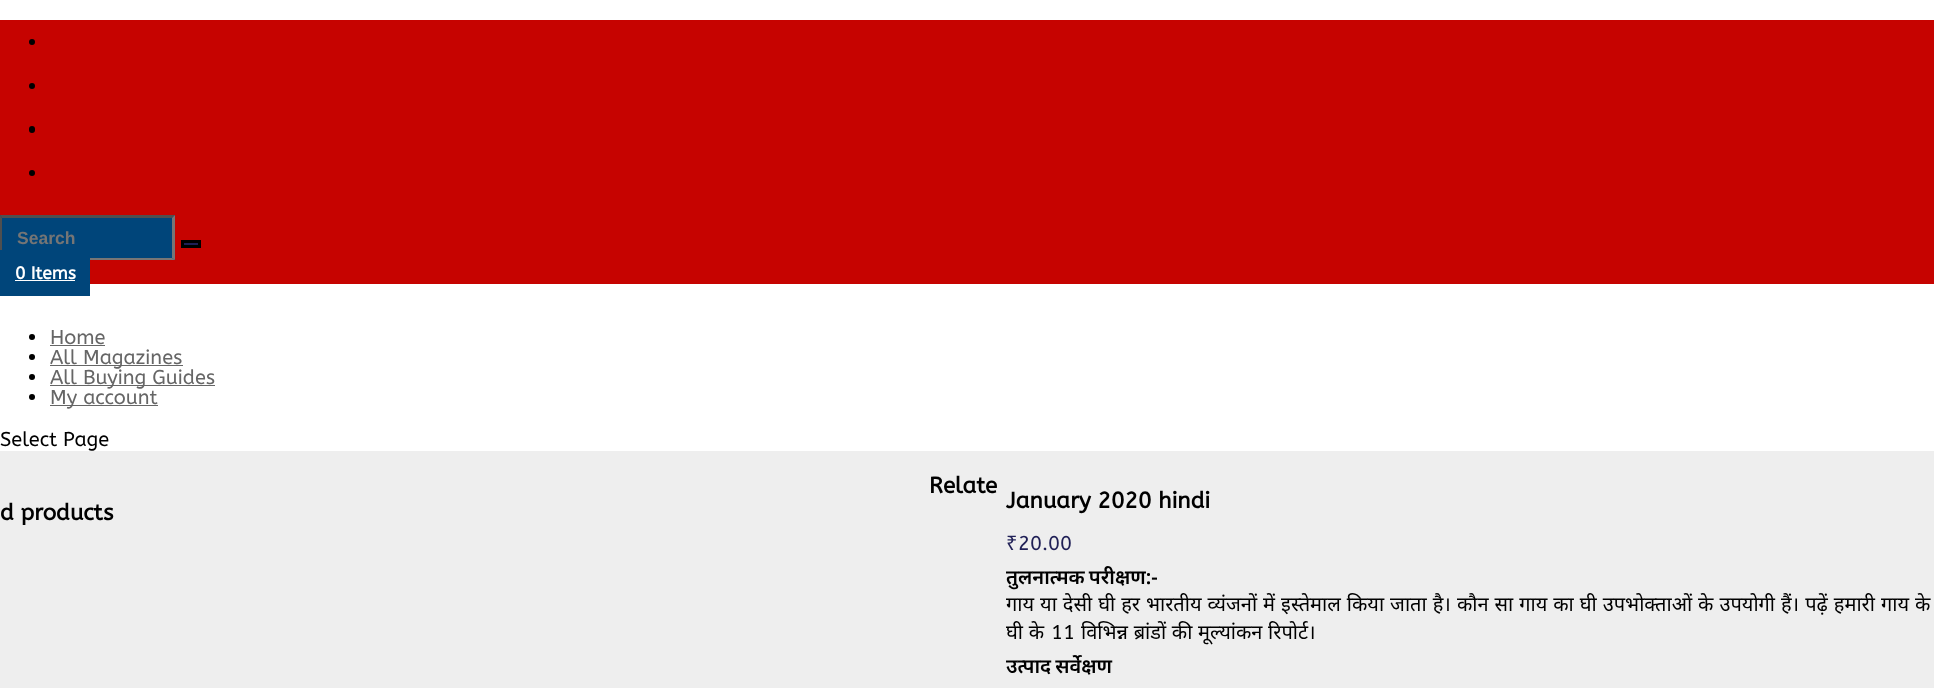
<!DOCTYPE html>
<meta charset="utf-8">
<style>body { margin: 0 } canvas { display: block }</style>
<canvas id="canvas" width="1934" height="688"></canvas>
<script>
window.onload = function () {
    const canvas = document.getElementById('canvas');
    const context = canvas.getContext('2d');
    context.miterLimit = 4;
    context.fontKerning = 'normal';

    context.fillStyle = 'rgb(255, 255, 255)';
    context.fillRect(0, 0, 1934, 688);
    context.fillStyle = 'rgb(238, 238, 238)';
    context.fillRect(0, 451, 1934, 237);
    context.fillStyle = 'rgb(198, 3, 0)';
    context.fillRect(0, 20, 1934, 264);
    context.fillStyle = 'rgb(0, 0, 0)';
    context.beginPath();
    context.arc(32, 42, 3, 0, 2 * Math.PI);
    context.fill();
    context.beginPath();
    context.arc(32, 86, 3, 0, 2 * Math.PI);
    context.fill();
    context.beginPath();
    context.roundRect(29, 126, 6, 7, 3);
    context.fill();
    context.beginPath();
    context.arc(32, 173, 3, 0, 2 * Math.PI);
    context.fill();
    context.fillStyle = 'rgb(0, 69, 122)';
    context.fillRect(0, 215, 175, 45);
    context.fillStyle = 'rgb(79, 79, 79)';
    context.beginPath();
    context.moveTo(0, 215);
    context.lineTo(175, 215);
    context.lineTo(172, 218);
    context.lineTo(2, 218);
    context.closePath();
    context.fill();
    context.fillStyle = 'rgb(118, 118, 118)';
    context.beginPath();
    context.moveTo(175, 215);
    context.lineTo(175, 260);
    context.lineTo(172, 258);
    context.lineTo(172, 218);
    context.closePath();
    context.fill();
    context.beginPath();
    context.moveTo(175, 260);
    context.lineTo(0, 260);
    context.lineTo(2, 258);
    context.lineTo(172, 258);
    context.closePath();
    context.fill();
    context.fillStyle = 'rgb(79, 79, 79)';
    context.beginPath();
    context.moveTo(0, 260);
    context.lineTo(0, 215);
    context.lineTo(2, 218);
    context.lineTo(2, 258);
    context.closePath();
    context.fill();
    context.fillStyle = 'rgb(31, 31, 86)';
    context.beginPath();
    context.rect(182.5, 241.5, 17, 5);
    context.fill();
    context.strokeStyle = 'rgb(0, 0, 0)';
    context.lineWidth = 3;
    context.stroke();
    context.fillStyle = 'rgb(0, 69, 122)';
    context.fillRect(0, 250, 90, 46);
    context.fillStyle = 'rgb(255, 255, 255)';
    context.fillRect(15, 280, 60, 1);
    context.fillStyle = 'rgb(0, 0, 0)';
    context.beginPath();
    context.arc(32, 337, 3, 0, 2 * Math.PI);
    context.fill();
    context.fillStyle = 'rgb(102, 102, 102)';
    context.fillRect(50, 345, 55, 1);
    context.fillStyle = 'rgb(0, 0, 0)';
    context.beginPath();
    context.arc(32, 357, 3, 0, 2 * Math.PI);
    context.fill();
    context.fillStyle = 'rgb(102, 102, 102)';
    context.fillRect(50, 365, 133, 1);
    context.fillStyle = 'rgb(0, 0, 0)';
    context.beginPath();
    context.arc(32, 377, 3, 0, 2 * Math.PI);
    context.fill();
    context.fillStyle = 'rgb(102, 102, 102)';
    context.fillRect(50, 385, 165, 1);
    context.fillStyle = 'rgb(0, 0, 0)';
    context.beginPath();
    context.arc(32, 397, 3, 0, 2 * Math.PI);
    context.fill();
    context.fillStyle = 'rgb(102, 102, 102)';
    context.fillRect(50, 405, 108, 1);
    context.font = 'bold 17.5px Liberation Sans';
    context.fillStyle = 'rgb(117, 117, 117)';
    context.fillText('Search', 17, 244);
    context.font = 'bold 17.5px ABeeZee';
    context.fillStyle = 'rgb(255, 255, 255)';
    context.fillText('0 Items', 15, 279);
    context.font = '20px ABeeZee';
    context.fillStyle = 'rgb(102, 102, 102)';
    context.fillText('Home', 50, 344);
    context.fillText('All Magazines', 50, 364);
    context.fillText('All Buying Guides', 50, 384);
    context.fillText('My account', 50, 404);
    context.fillStyle = 'rgb(0, 0, 0)';
    context.fillText('Select Page', 0, 446);
    context.font = 'bold 22.5px ABeeZee';
    context.fillText('Relate', 929, 493);
    context.fillText('d products', 0, 520);
    context.fillText('January 2020 hindi', 1006, 508);
    context.font = '20px Noto Sans';
    context.fillStyle = 'rgb(31, 31, 86)';
    context.fillText('₹', 1006, 550);
    context.font = '20px ABeeZee';
    context.fillText('20.00', 1018, 550);
    context.wordSpacing = '-1px';
    context.font = '600 20px Noto Sans';
    context.fillStyle = 'rgb(0, 0, 0)';
    context.fillText('तुलनात्मक परीक्षण:-', 1006, 584);
    context.wordSpacing = '0.8px';
    context.font = '20px Noto Sans';
    context.fillText('गाय या देसी घी हर भारतीय व्यंजनों में इस्तेमाल किया जाता है। कौन सा गाय का घी उपभोक्ताओं के उपयोगी हैं। पढ़ें हमारी गाय के', 1006, 611);
    context.wordSpacing = '0.5px';
    context.fillText('घी के', 1006, 639);
    context.wordSpacing = '0px';
    context.font = '20px ABeeZee';
    context.fillText('11', 1051, 639);
    context.wordSpacing = '0.5px';
    context.font = '20px Noto Sans';
    context.fillText('विभिन्न ब्रांडों की मूल्यांकन रिपोर्ट।', 1081, 639);
    context.wordSpacing = '-1px';
    context.font = '600 20px Noto Sans';
    context.fillText('उत्पाद सर्वेक्षण', 1006, 673);
};
</script>
